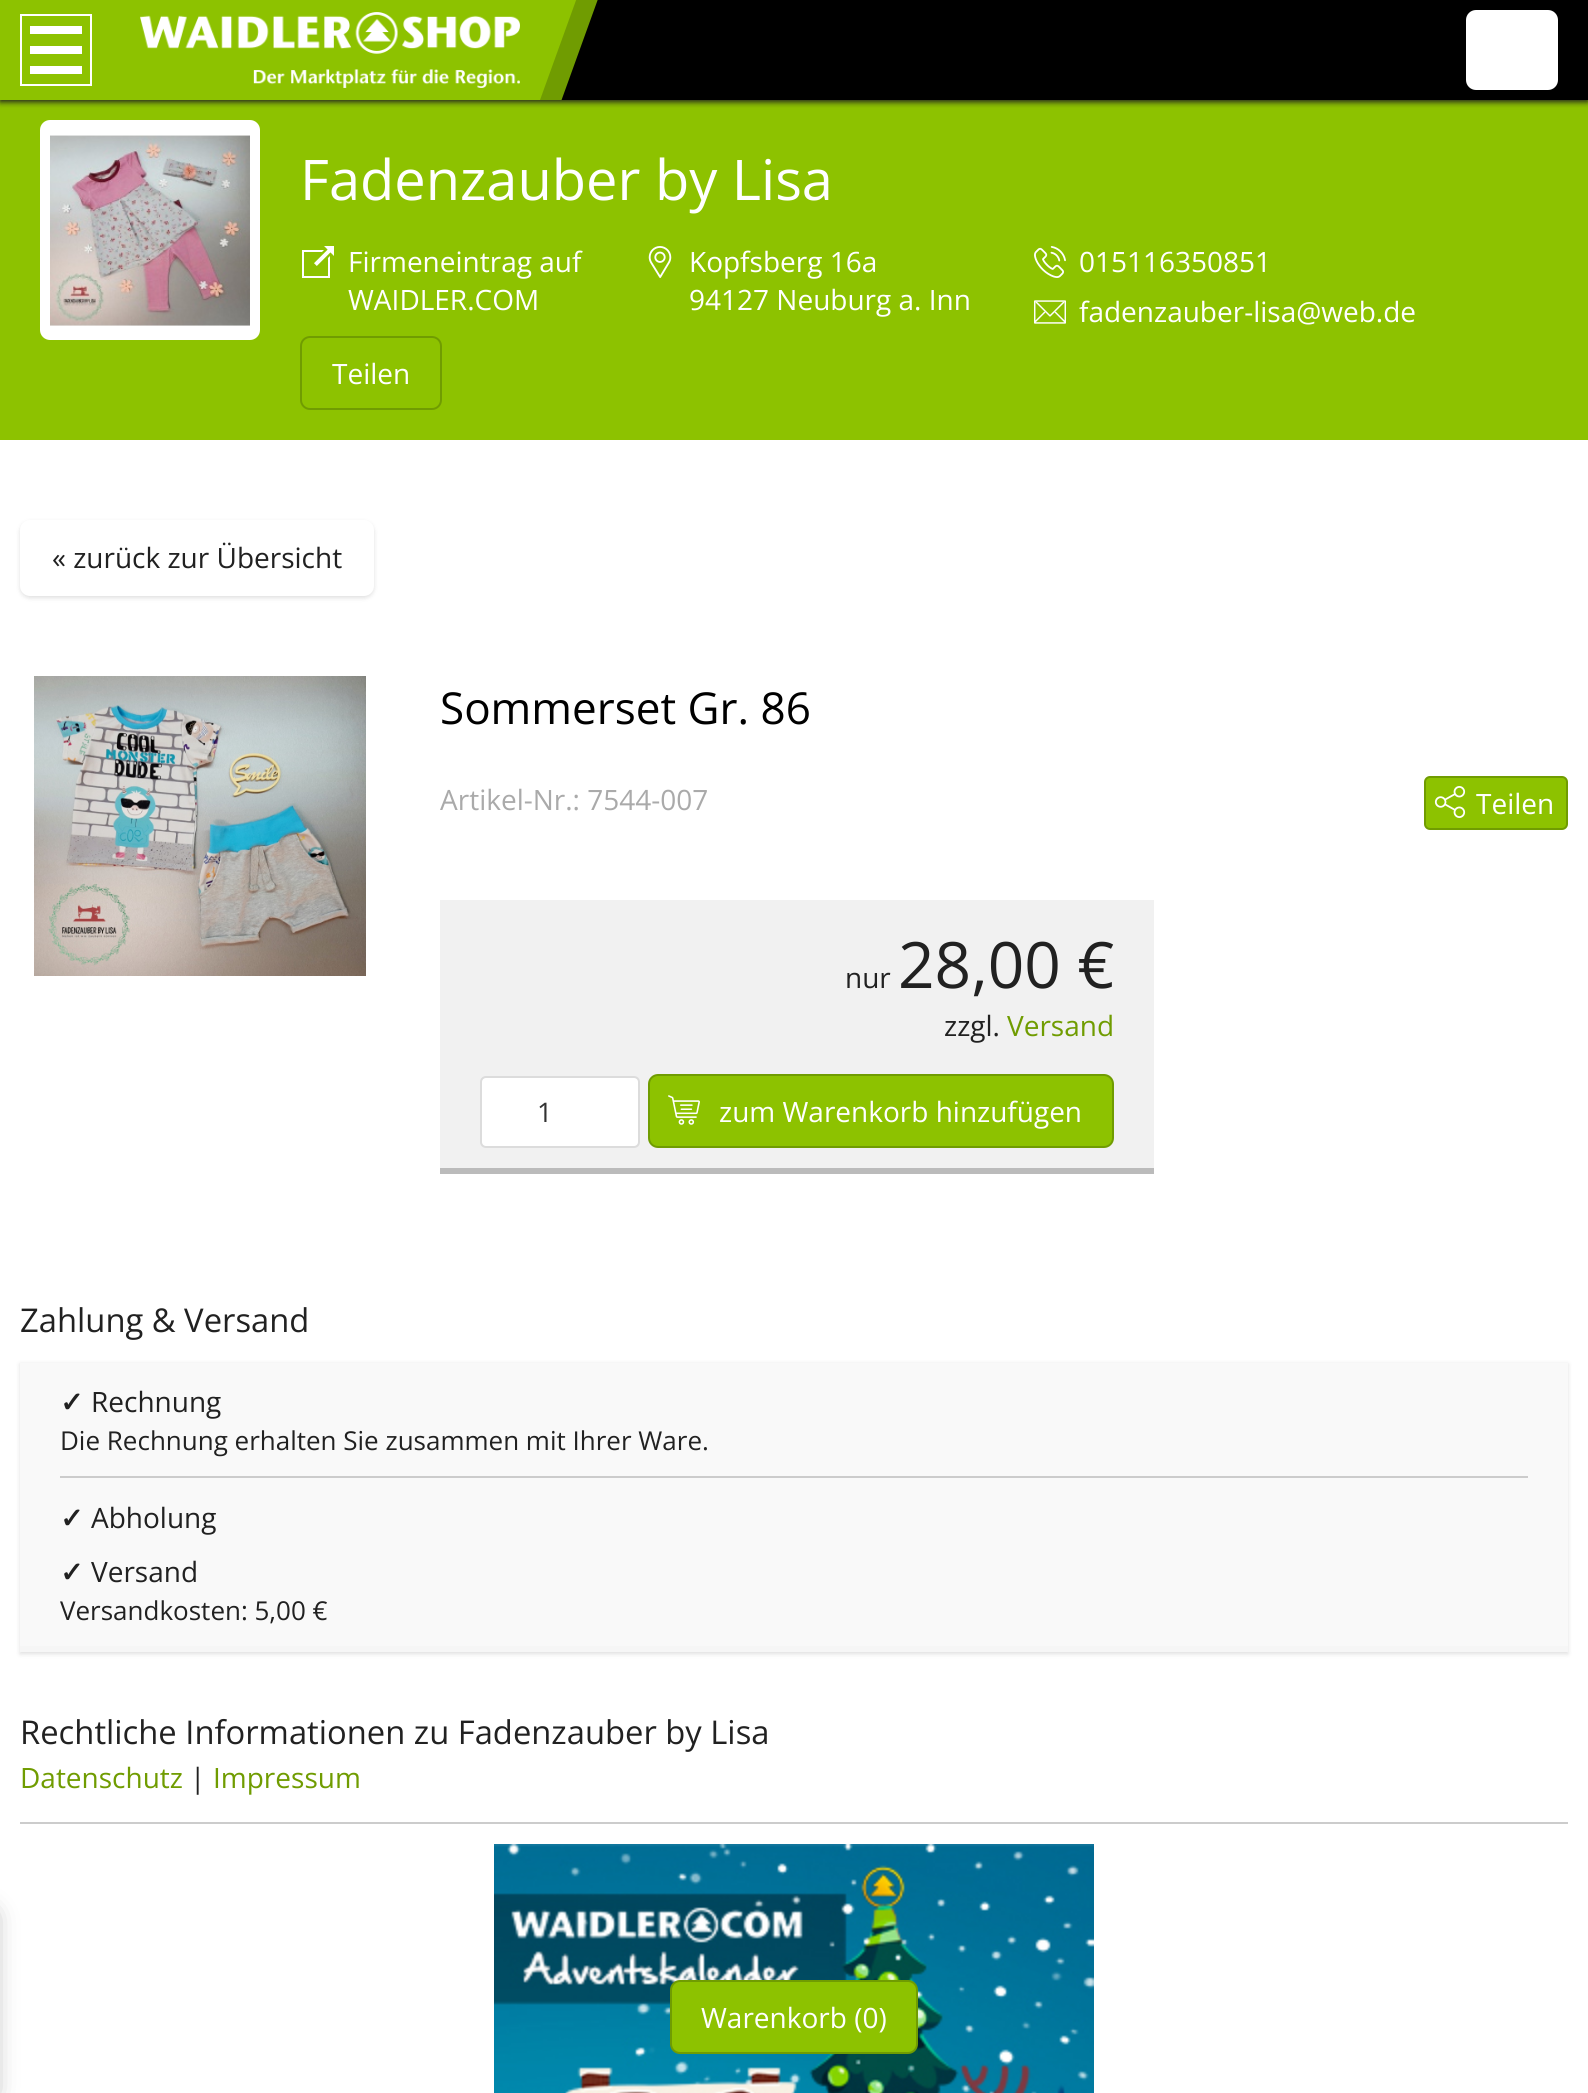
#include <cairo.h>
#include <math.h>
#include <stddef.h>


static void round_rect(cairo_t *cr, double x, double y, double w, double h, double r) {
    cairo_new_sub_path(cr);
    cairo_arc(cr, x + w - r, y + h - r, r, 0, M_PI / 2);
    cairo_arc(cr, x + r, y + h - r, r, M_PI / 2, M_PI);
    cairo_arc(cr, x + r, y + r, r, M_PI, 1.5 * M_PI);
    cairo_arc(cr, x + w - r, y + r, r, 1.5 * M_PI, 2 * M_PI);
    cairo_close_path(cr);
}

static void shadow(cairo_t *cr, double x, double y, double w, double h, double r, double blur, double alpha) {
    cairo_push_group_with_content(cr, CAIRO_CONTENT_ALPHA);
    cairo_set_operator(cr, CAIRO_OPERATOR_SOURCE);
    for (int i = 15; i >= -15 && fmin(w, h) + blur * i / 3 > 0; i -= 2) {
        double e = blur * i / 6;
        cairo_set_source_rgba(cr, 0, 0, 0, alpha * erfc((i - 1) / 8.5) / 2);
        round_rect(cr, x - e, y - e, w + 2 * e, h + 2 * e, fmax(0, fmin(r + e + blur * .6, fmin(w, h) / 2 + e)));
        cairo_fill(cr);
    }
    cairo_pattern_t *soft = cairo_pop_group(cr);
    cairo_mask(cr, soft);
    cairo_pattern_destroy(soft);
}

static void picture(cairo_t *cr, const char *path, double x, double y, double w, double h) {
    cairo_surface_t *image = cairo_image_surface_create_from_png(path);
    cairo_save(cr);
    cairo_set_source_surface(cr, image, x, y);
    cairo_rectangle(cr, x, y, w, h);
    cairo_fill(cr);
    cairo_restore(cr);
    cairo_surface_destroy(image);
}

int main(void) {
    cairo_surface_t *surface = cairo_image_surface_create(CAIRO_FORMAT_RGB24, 1588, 2093);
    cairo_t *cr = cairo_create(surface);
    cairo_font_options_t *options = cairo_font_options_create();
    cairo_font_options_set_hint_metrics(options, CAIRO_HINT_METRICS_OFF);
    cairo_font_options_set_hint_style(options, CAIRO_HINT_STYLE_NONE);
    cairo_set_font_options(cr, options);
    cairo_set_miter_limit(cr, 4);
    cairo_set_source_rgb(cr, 1, 1, 1);
    cairo_paint(cr);
    cairo_set_source_rgb(cr, 0.553, 0.761, 0);
    cairo_rectangle(cr, 0, 100, 1588, 340);
    cairo_fill(cr);
    cairo_set_source_rgb(cr, 0.125, 0.125, 0.125);
    shadow(cr, 0, 2, 1588, 100, 0, 3, 1);
    cairo_set_source_rgb(cr, 0, 0, 0);
    cairo_rectangle(cr, 561, 0, 1027, 100);
    cairo_fill(cr);
    cairo_set_source_rgb(cr, 0.553, 0.761, 0);
    cairo_rectangle(cr, 0, 0, 530, 100);
    cairo_fill(cr);
    picture(cr, "img1.png", 140, 12, 380, 76);
    cairo_save(cr);
    cairo_rectangle(cr, 0, 0, 600, 100);
    cairo_clip(cr);
    cairo_new_path(cr);
    cairo_move_to(cr, 530, 150);
    cairo_line_to(cr, 530, 0);
    cairo_line_to(cr, 580, 0);
    cairo_close_path(cr);
    cairo_fill(cr);
    cairo_set_source_rgb(cr, 0.439, 0.612, 0.004);
    cairo_new_path(cr);
    cairo_move_to(cr, 579, -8);
    cairo_line_to(cr, 598, -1);
    cairo_line_to(cr, 537, 168);
    cairo_line_to(cr, 518, 161);
    cairo_close_path(cr);
    cairo_fill(cr);
    cairo_restore(cr);
    cairo_set_source_rgb(cr, 1, 1, 1);
    round_rect(cr, 1467, 11, 90, 78, 9);
    cairo_fill_preserve(cr);
    cairo_stroke(cr);
    cairo_rectangle(cr, 21, 15, 70, 70);
    cairo_stroke(cr);
    cairo_rectangle(cr, 30, 26, 52, 8);
    cairo_fill(cr);
    cairo_rectangle(cr, 30, 46, 52, 8);
    cairo_fill(cr);
    cairo_rectangle(cr, 30, 66, 52, 8);
    cairo_fill(cr);
    round_rect(cr, 40, 120, 220, 220, 10);
    cairo_fill(cr);
    picture(cr, "img2.png", 50, 135, 200, 191);
    cairo_select_font_face(cr, "Open Sans", CAIRO_FONT_SLANT_NORMAL, CAIRO_FONT_WEIGHT_NORMAL);
    cairo_set_font_size(cr, 56);
    cairo_move_to(cr, 300, 200);
    cairo_show_text(cr, "Fadenzauber by Lisa");
    picture(cr, "img3.png", 302, 246, 32, 32);
    cairo_set_font_size(cr, 28);
    cairo_move_to(cr, 348, 272);
    cairo_show_text(cr, "Firmeneintrag auf");
    cairo_move_to(cr, 348, 310);
    cairo_show_text(cr, "WAIDLER.COM");
    picture(cr, "img4.png", 648, 246, 24, 32);
    cairo_move_to(cr, 689, 272);
    cairo_show_text(cr, "Kopfsberg 16a");
    cairo_move_to(cr, 689, 310);
    cairo_show_text(cr, "94127 Neuburg a. Inn");
    picture(cr, "img5.png", 1034, 246, 32, 32);
    cairo_move_to(cr, 1079, 272);
    cairo_show_text(cr, "015116350851");
    picture(cr, "img6.png", 1034, 300, 32, 24);
    cairo_move_to(cr, 1079, 322);
    cairo_show_text(cr, "fadenzauber-lisa@web.de");
    round_rect(cr, 301, 337, 140, 72, 9);
    cairo_set_source_rgb(cr, 0.439, 0.612, 0.004);
    cairo_stroke(cr);
    cairo_set_source_rgb(cr, 1, 1, 1);
    cairo_move_to(cr, 332, 384);
    cairo_show_text(cr, "Teilen");
    cairo_set_source_rgb(cr, 0, 0, 0);
    shadow(cr, 20, 522, 354, 76, 10, 2, 0.08);
    shadow(cr, 20, 522, 354, 76, 10, 3, 0.05);
    cairo_set_source_rgb(cr, 1, 1, 1);
    round_rect(cr, 21, 521, 352, 74, 9);
    cairo_fill_preserve(cr);
    cairo_stroke(cr);
    cairo_set_source_rgb(cr, 0.129, 0.129, 0.129);
    cairo_move_to(cr, 52, 568);
    cairo_show_text(cr, "« zurück zur Übersicht");
    picture(cr, "img7.png", 34, 676, 332, 300);
    cairo_set_font_size(cr, 44);
    cairo_set_source_rgb(cr, 0, 0, 0);
    cairo_move_to(cr, 440, 724);
    cairo_show_text(cr, "Sommerset Gr. 86");
    cairo_set_font_size(cr, 28);
    cairo_set_source_rgb(cr, 0.667, 0.667, 0.667);
    cairo_move_to(cr, 440, 810);
    cairo_show_text(cr, "Artikel-Nr.: 7544-007");
    cairo_set_source_rgb(cr, 0.553, 0.761, 0);
    round_rect(cr, 1425, 777, 142, 52, 5);
    cairo_fill_preserve(cr);
    cairo_set_source_rgb(cr, 0.439, 0.612, 0.004);
    cairo_stroke(cr);
    picture(cr, "img8.png", 1434, 786, 32, 32);
    cairo_set_source_rgb(cr, 1, 1, 1);
    cairo_move_to(cr, 1476, 814);
    cairo_show_text(cr, "Teilen");
    cairo_set_source_rgb(cr, 0.945, 0.945, 0.945);
    cairo_rectangle(cr, 440, 900, 714, 268);
    cairo_fill(cr);
    cairo_set_source_rgb(cr, 0.733, 0.733, 0.733);
    cairo_rectangle(cr, 440, 1168, 714, 6);
    cairo_fill(cr);
    cairo_set_source_rgb(cr, 0.129, 0.129, 0.129);
    cairo_move_to(cr, 845, 988);
    cairo_show_text(cr, "nur");
    cairo_set_font_size(cr, 64);
    cairo_move_to(cr, 898, 988);
    cairo_show_text(cr, "28,00 €");
    cairo_set_font_size(cr, 28);
    cairo_move_to(cr, 944, 1036);
    cairo_show_text(cr, "zzgl.");
    cairo_set_source_rgb(cr, 0.439, 0.612, 0.004);
    cairo_move_to(cr, 1007, 1036);
    cairo_show_text(cr, "Versand");
    cairo_set_source_rgb(cr, 1, 1, 1);
    round_rect(cr, 481, 1077, 158, 70, 5);
    cairo_fill_preserve(cr);
    cairo_set_source_rgb(cr, 0.863, 0.863, 0.863);
    cairo_stroke(cr);
    cairo_set_font_size(cr, 27);
    cairo_set_source_rgb(cr, 0.196, 0.196, 0.196);
    cairo_move_to(cr, 537, 1122);
    cairo_show_text(cr, "1");
    cairo_set_source_rgb(cr, 0.553, 0.761, 0);
    round_rect(cr, 649, 1075, 464, 72, 9);
    cairo_fill_preserve(cr);
    cairo_set_source_rgb(cr, 0.439, 0.612, 0.004);
    cairo_stroke(cr);
    picture(cr, "img9.png", 668, 1095, 32, 30);
    cairo_set_font_size(cr, 28);
    cairo_set_source_rgb(cr, 1, 1, 1);
    cairo_move_to(cr, 719, 1122);
    cairo_show_text(cr, "zum Warenkorb hinzufügen");
    cairo_set_font_size(cr, 32.75);
    cairo_set_source_rgb(cr, 0.129, 0.129, 0.129);
    cairo_move_to(cr, 20, 1332);
    cairo_show_text(cr, "Zahlung & Versand");
    cairo_set_source_rgb(cr, 0, 0, 0);
    shadow(cr, 20, 1364, 1548, 290, 0, 2, 0.08);
    shadow(cr, 20, 1364, 1548, 290, 0, 3, 0.05);
    cairo_set_source_rgb(cr, 0.976, 0.976, 0.976);
    cairo_rectangle(cr, 20, 1363, 1548, 283);
    cairo_fill(cr);
    cairo_set_source_rgb(cr, 0.961, 0.961, 0.961);
    cairo_rectangle(cr, 20, 1646, 1548, 6);
    cairo_fill(cr);
    cairo_select_font_face(cr, "DejaVu Sans", CAIRO_FONT_SLANT_NORMAL, CAIRO_FONT_WEIGHT_BOLD);
    cairo_set_font_size(cr, 28);
    cairo_set_source_rgb(cr, 0.129, 0.129, 0.129);
    cairo_move_to(cr, 60, 1412);
    cairo_show_text(cr, "✓");
    cairo_select_font_face(cr, "Open Sans", CAIRO_FONT_SLANT_NORMAL, CAIRO_FONT_WEIGHT_NORMAL);
    cairo_move_to(cr, 91, 1412);
    cairo_show_text(cr, "Rechnung");
    cairo_set_font_size(cr, 26);
    cairo_move_to(cr, 60, 1450);
    cairo_show_text(cr, "Die Rechnung erhalten Sie zusammen mit Ihrer Ware.");
    cairo_set_source_rgb(cr, 0.8, 0.8, 0.8);
    cairo_rectangle(cr, 60, 1476, 1468, 2);
    cairo_fill(cr);
    cairo_select_font_face(cr, "DejaVu Sans", CAIRO_FONT_SLANT_NORMAL, CAIRO_FONT_WEIGHT_BOLD);
    cairo_set_font_size(cr, 28);
    cairo_set_source_rgb(cr, 0.129, 0.129, 0.129);
    cairo_move_to(cr, 60, 1528);
    cairo_show_text(cr, "✓");
    cairo_select_font_face(cr, "Open Sans", CAIRO_FONT_SLANT_NORMAL, CAIRO_FONT_WEIGHT_NORMAL);
    cairo_move_to(cr, 91, 1528);
    cairo_show_text(cr, "Abholung");
    cairo_select_font_face(cr, "DejaVu Sans", CAIRO_FONT_SLANT_NORMAL, CAIRO_FONT_WEIGHT_BOLD);
    cairo_move_to(cr, 60, 1582);
    cairo_show_text(cr, "✓");
    cairo_select_font_face(cr, "Open Sans", CAIRO_FONT_SLANT_NORMAL, CAIRO_FONT_WEIGHT_NORMAL);
    cairo_move_to(cr, 91, 1582);
    cairo_show_text(cr, "Versand");
    cairo_set_font_size(cr, 26);
    cairo_move_to(cr, 60, 1620);
    cairo_show_text(cr, "Versandkosten: 5,00 €");
    cairo_set_font_size(cr, 32.75);
    cairo_move_to(cr, 20, 1744);
    cairo_show_text(cr, "Rechtliche Informationen zu Fadenzauber by Lisa");
    cairo_set_font_size(cr, 28);
    cairo_set_source_rgb(cr, 0.439, 0.612, 0.004);
    cairo_move_to(cr, 20, 1788);
    cairo_show_text(cr, "Datenschutz");
    cairo_set_source_rgb(cr, 0.129, 0.129, 0.129);
    cairo_move_to(cr, 190, 1788);
    cairo_show_text(cr, "|");
    cairo_set_source_rgb(cr, 0.439, 0.612, 0.004);
    cairo_move_to(cr, 213, 1788);
    cairo_show_text(cr, "Impressum");
    cairo_set_source_rgb(cr, 0.8, 0.8, 0.8);
    cairo_rectangle(cr, 20, 1822, 1548, 2);
    cairo_fill(cr);
    cairo_set_source_rgb(cr, 0.451, 0.451, 0.451);
    shadow(cr, -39, 1916, 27, 176, 0, 13, 1);
    picture(cr, "img10.png", 494, 1844, 600, 249);
    cairo_set_source_rgb(cr, 0.553, 0.761, 0);
    round_rect(cr, 671, 1981, 246, 72, 9);
    cairo_fill_preserve(cr);
    cairo_set_source_rgb(cr, 0.439, 0.612, 0.004);
    cairo_stroke(cr);
    cairo_set_source_rgb(cr, 1, 1, 1);
    cairo_move_to(cr, 701, 2028);
    cairo_show_text(cr, "Warenkorb (0)");
    cairo_surface_write_to_png(surface, "page.png");
    cairo_font_options_destroy(options);
    cairo_destroy(cr);
    cairo_surface_destroy(surface);
    return 0;
}
